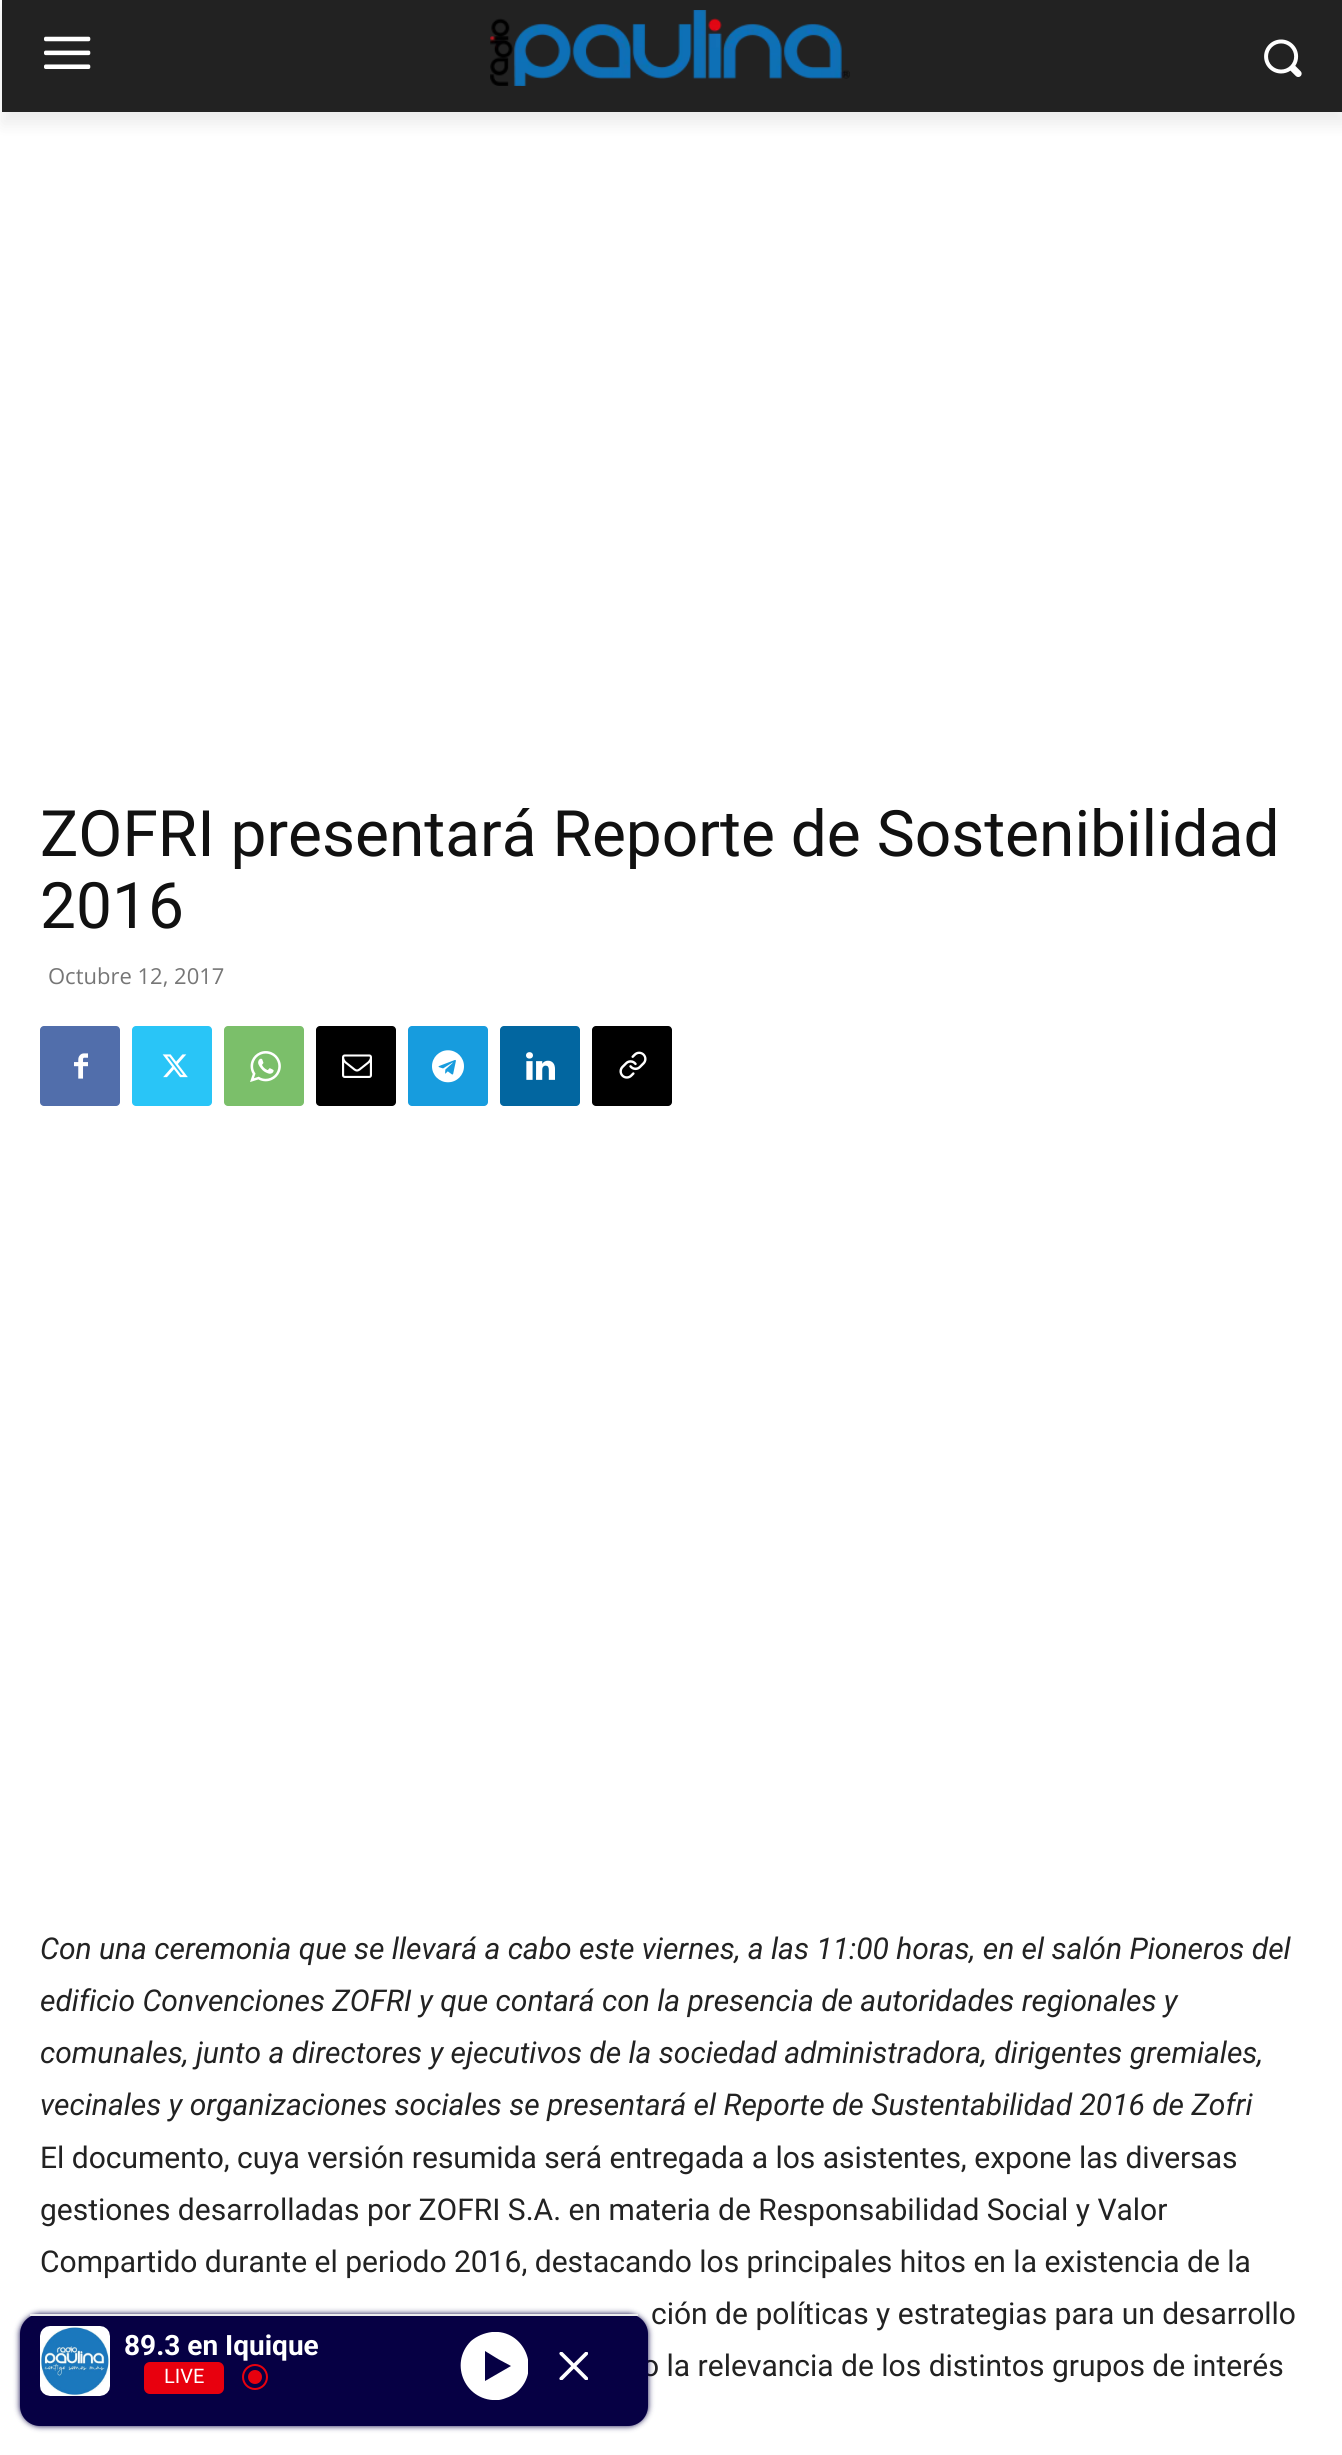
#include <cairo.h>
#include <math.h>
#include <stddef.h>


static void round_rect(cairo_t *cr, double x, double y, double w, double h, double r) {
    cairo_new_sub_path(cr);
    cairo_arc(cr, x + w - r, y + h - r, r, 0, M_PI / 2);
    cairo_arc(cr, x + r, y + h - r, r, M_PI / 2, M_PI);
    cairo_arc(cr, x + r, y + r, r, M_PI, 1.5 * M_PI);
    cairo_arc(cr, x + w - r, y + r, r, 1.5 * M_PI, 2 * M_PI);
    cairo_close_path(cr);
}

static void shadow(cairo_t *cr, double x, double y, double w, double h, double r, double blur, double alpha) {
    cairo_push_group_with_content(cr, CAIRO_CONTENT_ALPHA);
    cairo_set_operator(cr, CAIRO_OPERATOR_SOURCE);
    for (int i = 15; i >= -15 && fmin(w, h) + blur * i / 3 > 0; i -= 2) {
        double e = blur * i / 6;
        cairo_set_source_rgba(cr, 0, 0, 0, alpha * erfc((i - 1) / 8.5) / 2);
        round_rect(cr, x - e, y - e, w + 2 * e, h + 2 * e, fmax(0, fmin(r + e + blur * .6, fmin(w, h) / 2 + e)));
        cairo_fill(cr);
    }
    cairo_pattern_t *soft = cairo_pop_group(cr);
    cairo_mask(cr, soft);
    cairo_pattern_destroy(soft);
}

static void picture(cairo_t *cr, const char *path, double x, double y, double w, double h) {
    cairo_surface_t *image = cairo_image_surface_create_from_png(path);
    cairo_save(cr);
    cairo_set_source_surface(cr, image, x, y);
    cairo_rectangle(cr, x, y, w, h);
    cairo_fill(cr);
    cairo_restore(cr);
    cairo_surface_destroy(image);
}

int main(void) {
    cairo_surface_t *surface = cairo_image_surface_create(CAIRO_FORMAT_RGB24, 1342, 2455);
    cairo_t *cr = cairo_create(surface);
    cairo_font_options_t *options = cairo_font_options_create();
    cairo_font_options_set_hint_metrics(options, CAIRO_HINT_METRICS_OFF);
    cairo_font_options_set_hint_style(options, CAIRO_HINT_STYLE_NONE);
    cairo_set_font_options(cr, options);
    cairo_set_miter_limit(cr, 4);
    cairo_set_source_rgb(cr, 1, 1, 1);
    cairo_paint(cr);
    cairo_set_source_rgb(cr, 0.133, 0.133, 0.133);
    cairo_rectangle(cr, 2, 0, 1340, 112);
    cairo_fill(cr);
    picture(cr, "img1.png", 44, 36, 47, 33);
    picture(cr, "img2.png", 490, 10, 360, 76);
    picture(cr, "img3.png", 1264, 39, 38, 38);
    cairo_save(cr);
    cairo_set_fill_rule(cr, CAIRO_FILL_RULE_EVEN_ODD);
    cairo_new_path(cr);
    cairo_move_to(cr, 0, 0);
    cairo_line_to(cr, 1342, 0);
    cairo_line_to(cr, 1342, 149);
    cairo_line_to(cr, 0, 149);
    cairo_close_path(cr);
    cairo_move_to(cr, 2, 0);
    cairo_line_to(cr, 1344, 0);
    cairo_line_to(cr, 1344, 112);
    cairo_line_to(cr, 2, 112);
    cairo_close_path(cr);
    cairo_clip(cr);
    cairo_set_source_rgb(cr, 0, 0, 0);
    shadow(cr, 2, 12, 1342, 112, 0, 8, 0.08);
    cairo_restore(cr);
    cairo_select_font_face(cr, "Roboto", CAIRO_FONT_SLANT_NORMAL, CAIRO_FONT_WEIGHT_NORMAL);
    cairo_set_font_size(cr, 64);
    cairo_set_source_rgb(cr, 0.067, 0.067, 0.067);
    cairo_move_to(cr, 40, 856);
    cairo_show_text(cr, "ZOFRI presentará Reporte de Sostenibilidad");
    cairo_move_to(cr, 40, 928);
    cairo_show_text(cr, "2016");
    cairo_select_font_face(cr, "Open Sans", CAIRO_FONT_SLANT_NORMAL, CAIRO_FONT_WEIGHT_NORMAL);
    cairo_set_font_size(cr, 22);
    cairo_set_source_rgb(cr, 0.463, 0.463, 0.463);
    cairo_move_to(cr, 48, 984);
    cairo_show_text(cr, "Octubre 12, 2017");
    cairo_set_source_rgb(cr, 0.318, 0.431, 0.671);
    round_rect(cr, 40, 1026, 80, 80, 4);
    cairo_fill(cr);
    picture(cr, "img4.png", 74, 1053, 14, 26);
    cairo_set_source_rgb(cr, 0.161, 0.773, 0.965);
    round_rect(cr, 132, 1026, 80, 80, 4);
    cairo_fill(cr);
    picture(cr, "img5.png", 162, 1054, 26, 24);
    cairo_set_source_rgb(cr, 0.482, 0.749, 0.416);
    round_rect(cr, 224, 1026, 80, 80, 4);
    cairo_fill(cr);
    picture(cr, "img6.png", 250, 1051, 31, 31);
    cairo_set_source_rgb(cr, 0, 0, 0);
    round_rect(cr, 316, 1026, 80, 80, 4);
    cairo_fill(cr);
    picture(cr, "img7.png", 342, 1054, 30, 24);
    cairo_set_source_rgb(cr, 0.09, 0.612, 0.871);
    round_rect(cr, 408, 1026, 80, 80, 4);
    cairo_fill(cr);
    picture(cr, "img8.png", 432, 1050, 32, 33);
    cairo_set_source_rgb(cr, 0.008, 0.4, 0.627);
    round_rect(cr, 500, 1026, 80, 80, 4);
    cairo_fill(cr);
    picture(cr, "img9.png", 526, 1052, 29, 28);
    cairo_set_source_rgb(cr, 0, 0, 0);
    round_rect(cr, 592, 1026, 80, 80, 4);
    cairo_fill(cr);
    picture(cr, "img10.png", 619, 1051, 28, 28);
    cairo_select_font_face(cr, "Roboto", CAIRO_FONT_SLANT_ITALIC, CAIRO_FONT_WEIGHT_NORMAL);
    cairo_set_font_size(cr, 30);
    cairo_set_source_rgb(cr, 0.133, 0.133, 0.133);
    cairo_move_to(cr, 40, 1959);
    cairo_show_text(cr, "Con una ceremonia que se llevará a cabo este viernes, a las 11:00 horas, en el salón Pioneros del");
    cairo_move_to(cr, 40, 2011);
    cairo_show_text(cr, "edificio Convenciones ZOFRI y que contará con la presencia de autoridades regionales y");
    cairo_move_to(cr, 40, 2063);
    cairo_show_text(cr, "comunales, junto a directores y ejecutivos de la sociedad administradora, dirigentes gremiales,");
    cairo_move_to(cr, 40, 2115);
    cairo_show_text(cr, "vecinales y organizaciones sociales se presentará el Reporte de Sustentabilidad 2016 de Zofri");
    cairo_select_font_face(cr, "Roboto", CAIRO_FONT_SLANT_NORMAL, CAIRO_FONT_WEIGHT_NORMAL);
    cairo_move_to(cr, 40, 2168);
    cairo_show_text(cr, "El documento, cuya versión resumida será entregada a los asistentes, expone las diversas");
    cairo_move_to(cr, 40, 2220);
    cairo_show_text(cr, "gestiones desarrolladas por ZOFRI S.A. en materia de Responsabilidad Social y Valor");
    cairo_move_to(cr, 40, 2272);
    cairo_show_text(cr, "Compartido durante el periodo 2016, destacando los principales hitos en la existencia de la");
    cairo_move_to(cr, 651, 2324);
    cairo_show_text(cr, "ción de políticas y estrategias para un desarrollo");
    cairo_move_to(cr, 642, 2376);
    cairo_show_text(cr, "o la relevancia de los distintos grupos de interés");
    cairo_set_source_rgb(cr, 0.027, 0, 0.267);
    shadow(cr, 20, 2314, 628, 112, 20, 3, 1);
    cairo_set_source_rgb(cr, 0.027, 0, 0.267);
    round_rect(cr, 20, 2314, 628, 112, 20);
    cairo_fill(cr);
    cairo_set_source_rgb(cr, 0.929, 0.929, 0.929);
    cairo_rectangle(cr, 30, 2314, 608, 2);
    cairo_fill(cr);
    picture(cr, "img11.png", 40, 2326, 70, 70);
    cairo_select_font_face(cr, "Roboto", CAIRO_FONT_SLANT_NORMAL, CAIRO_FONT_WEIGHT_BOLD);
    cairo_set_font_size(cr, 28);
    cairo_set_source_rgb(cr, 1, 1, 1);
    cairo_move_to(cr, 124, 2355);
    cairo_show_text(cr, "89.3 en Iquique");
    cairo_set_source_rgb(cr, 0.91, 0, 0.055);
    round_rect(cr, 144, 2362, 80, 32, 6);
    cairo_fill(cr);
    cairo_select_font_face(cr, "Roboto", CAIRO_FONT_SLANT_NORMAL, CAIRO_FONT_WEIGHT_NORMAL);
    cairo_set_font_size(cr, 20);
    cairo_set_source_rgb(cr, 1, 1, 1);
    cairo_move_to(cr, 164, 2383);
    cairo_show_text(cr, "LIVE");
    cairo_set_source_rgb(cr, 0.91, 0, 0.055);
    cairo_new_path(cr);
    cairo_arc(cr, 255, 2377, 7, 0, 2 * M_PI);
    cairo_fill(cr);
    cairo_arc(cr, 255, 2377, 12, 0, 2 * M_PI);
    cairo_stroke(cr);
    cairo_save(cr);
    cairo_rectangle(cr, 460, 2332, 68, 68);
    cairo_clip(cr);
    cairo_set_source_rgb(cr, 1, 1, 1);
    cairo_new_path(cr);
    cairo_move_to(cr, 492, 2332);
    cairo_curve_to(cr, 484, 2333, 477, 2336, 471, 2341);
    cairo_curve_to(cr, 448, 2364, 466, 2403, 499, 2400);
    cairo_curve_to(cr, 505, 2399, 512, 2396, 517, 2392);
    cairo_curve_to(cr, 542, 2370, 524, 2329, 492, 2332);
    cairo_close_path(cr);
    cairo_move_to(cr, 498, 2359);
    cairo_line_to(cr, 511, 2366);
    cairo_line_to(cr, 485, 2381);
    cairo_line_to(cr, 485, 2351);
    cairo_close_path(cr);
    cairo_fill(cr);
    cairo_restore(cr);
    picture(cr, "img12.png", 559, 2352, 29, 28);
    cairo_surface_write_to_png(surface, "page.png");
    cairo_font_options_destroy(options);
    cairo_destroy(cr);
    cairo_surface_destroy(surface);
    return 0;
}
